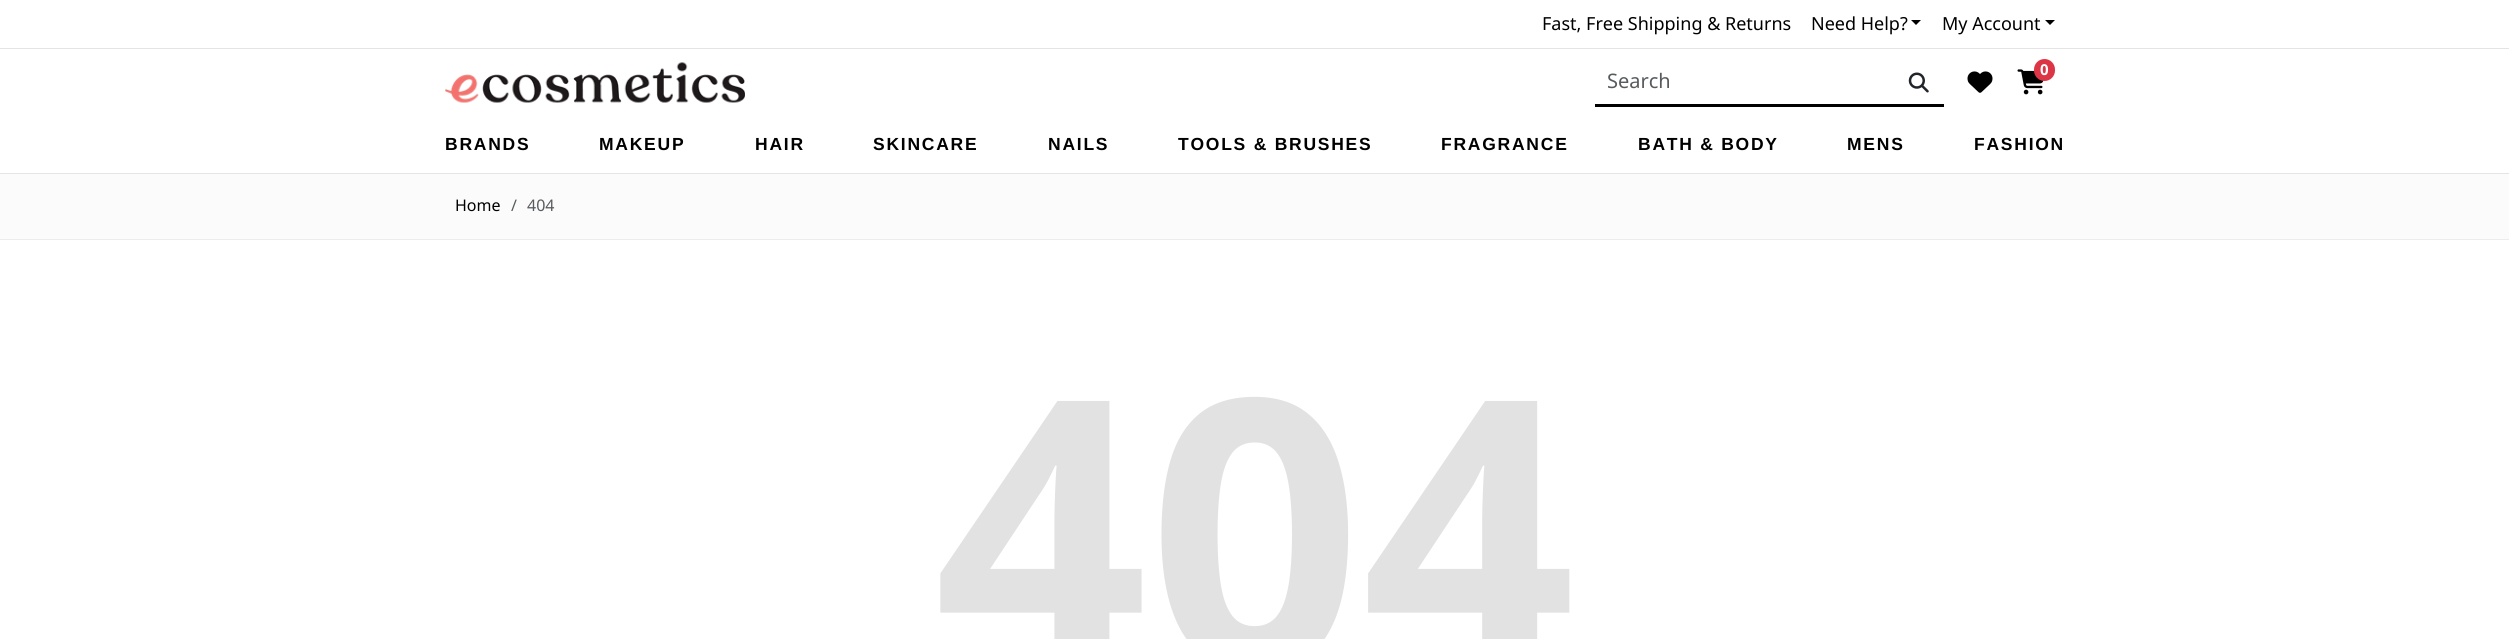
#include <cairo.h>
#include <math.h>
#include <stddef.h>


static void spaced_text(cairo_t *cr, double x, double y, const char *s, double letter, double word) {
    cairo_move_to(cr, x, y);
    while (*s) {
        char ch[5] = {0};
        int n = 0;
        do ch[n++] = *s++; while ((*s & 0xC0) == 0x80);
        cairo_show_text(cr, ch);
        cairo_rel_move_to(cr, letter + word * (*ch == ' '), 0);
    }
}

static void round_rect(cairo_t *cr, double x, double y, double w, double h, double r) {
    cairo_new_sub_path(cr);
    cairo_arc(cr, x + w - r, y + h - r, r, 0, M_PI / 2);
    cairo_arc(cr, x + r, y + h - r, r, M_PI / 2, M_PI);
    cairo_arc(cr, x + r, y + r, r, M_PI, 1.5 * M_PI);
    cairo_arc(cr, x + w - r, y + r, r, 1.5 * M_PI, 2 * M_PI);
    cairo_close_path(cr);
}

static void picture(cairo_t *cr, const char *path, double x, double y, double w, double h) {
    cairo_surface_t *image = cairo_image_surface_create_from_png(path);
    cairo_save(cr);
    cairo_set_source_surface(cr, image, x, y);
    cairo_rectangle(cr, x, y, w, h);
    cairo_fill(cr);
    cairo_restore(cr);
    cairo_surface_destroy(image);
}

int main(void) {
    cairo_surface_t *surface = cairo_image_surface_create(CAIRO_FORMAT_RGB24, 2509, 639);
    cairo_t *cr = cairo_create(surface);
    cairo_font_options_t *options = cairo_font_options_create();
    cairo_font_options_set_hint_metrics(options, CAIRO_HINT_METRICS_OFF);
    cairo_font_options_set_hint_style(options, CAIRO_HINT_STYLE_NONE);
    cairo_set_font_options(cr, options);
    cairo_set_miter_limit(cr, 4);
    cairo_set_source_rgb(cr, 1, 1, 1);
    cairo_paint(cr);
    cairo_set_source_rgb(cr, 0.894, 0.894, 0.894);
    cairo_rectangle(cr, 0, 48, 2509, 1);
    cairo_fill(cr);
    cairo_select_font_face(cr, "Noto Sans", CAIRO_FONT_SLANT_NORMAL, CAIRO_FONT_WEIGHT_NORMAL);
    cairo_set_font_size(cr, 18);
    cairo_set_source_rgb(cr, 0, 0, 0);
    cairo_move_to(cr, 1542, 30);
    cairo_show_text(cr, "Fast, Free Shipping & Returns");
    cairo_move_to(cr, 1811, 30);
    cairo_show_text(cr, "Need Help?");
    cairo_new_path(cr);
    cairo_move_to(cr, 1911, 20);
    cairo_line_to(cr, 1921, 20);
    cairo_line_to(cr, 1916, 25);
    cairo_close_path(cr);
    cairo_fill(cr);
    cairo_move_to(cr, 1942, 30);
    cairo_show_text(cr, "My Account");
    cairo_new_path(cr);
    cairo_move_to(cr, 2045, 20);
    cairo_line_to(cr, 2055, 20);
    cairo_line_to(cr, 2050, 25);
    cairo_close_path(cr);
    cairo_fill(cr);
    picture(cr, "img1.png", 445, 62, 300, 41);
    picture(cr, "img2.png", 1967, 71, 26, 22);
    picture(cr, "img3.png", 2017, 69, 27, 26);
    cairo_set_source_rgb(cr, 0.863, 0.208, 0.271);
    round_rect(cr, 2034, 59, 21, 22, 10.5);
    cairo_fill(cr);
    cairo_select_font_face(cr, "Noto Sans", CAIRO_FONT_SLANT_NORMAL, CAIRO_FONT_WEIGHT_BOLD);
    cairo_set_font_size(cr, 15);
    cairo_set_source_rgb(cr, 1, 1, 1);
    cairo_move_to(cr, 2040, 75);
    cairo_show_text(cr, "0");
    cairo_set_source_rgb(cr, 0, 0, 0);
    cairo_rectangle(cr, 1595, 104, 349, 3);
    cairo_fill(cr);
    cairo_select_font_face(cr, "Noto Sans", CAIRO_FONT_SLANT_NORMAL, CAIRO_FONT_WEIGHT_NORMAL);
    cairo_set_font_size(cr, 20);
    cairo_set_source_rgb(cr, 0.345, 0.357, 0.369);
    cairo_move_to(cr, 1607, 88);
    cairo_show_text(cr, "Search");
    picture(cr, "img4.png", 1908, 72, 21, 21);
    cairo_set_source_rgb(cr, 0.894, 0.894, 0.894);
    cairo_rectangle(cr, 0, 173, 2509, 1);
    cairo_fill(cr);
    cairo_select_font_face(cr, "Liberation Sans", CAIRO_FONT_SLANT_NORMAL, CAIRO_FONT_WEIGHT_BOLD);
    cairo_set_font_size(cr, 17.5);
    cairo_set_source_rgb(cr, 0, 0, 0);
    spaced_text(cr, 445, 150, "BRANDS", 1.75, 0);
    spaced_text(cr, 599, 150, "MAKEUP", 1.75, 0);
    spaced_text(cr, 755, 150, "HAIR", 1.75, 0);
    spaced_text(cr, 873, 150, "SKINCARE", 1.75, 0);
    spaced_text(cr, 1048, 150, "NAILS", 1.75, 0);
    spaced_text(cr, 1178, 150, "TOOLS & BRUSHES", 1.75, 0);
    spaced_text(cr, 1441, 150, "FRAGRANCE", 1.75, 0);
    spaced_text(cr, 1638, 150, "BATH & BODY", 1.75, 0);
    spaced_text(cr, 1847, 150, "MENS", 1.75, 0);
    spaced_text(cr, 1974, 150, "FASHION", 1.75, 0);
    cairo_set_source_rgb(cr, 0.984, 0.984, 0.984);
    cairo_rectangle(cr, 0, 174, 2509, 65);
    cairo_fill(cr);
    cairo_set_source_rgb(cr, 0.922, 0.922, 0.922);
    cairo_rectangle(cr, 0, 239, 2509, 1);
    cairo_fill(cr);
    cairo_select_font_face(cr, "Noto Sans", CAIRO_FONT_SLANT_NORMAL, CAIRO_FONT_WEIGHT_NORMAL);
    cairo_set_font_size(cr, 16);
    cairo_set_source_rgb(cr, 0, 0, 0);
    cairo_move_to(cr, 455, 211);
    cairo_show_text(cr, "Home");
    cairo_set_source_rgb(cr, 0.345, 0.357, 0.369);
    cairo_move_to(cr, 511, 211);
    cairo_show_text(cr, "/");
    cairo_move_to(cr, 527, 211);
    cairo_show_text(cr, "404");
    cairo_select_font_face(cr, "Noto Sans", CAIRO_FONT_SLANT_NORMAL, CAIRO_FONT_WEIGHT_BOLD);
    cairo_set_font_size(cr, 374);
    cairo_set_source_rgb(cr, 0.886, 0.886, 0.886);
    cairo_move_to(cr, 934, 668);
    cairo_show_text(cr, "404");
    cairo_surface_write_to_png(surface, "page.png");
    cairo_font_options_destroy(options);
    cairo_destroy(cr);
    cairo_surface_destroy(surface);
    return 0;
}
